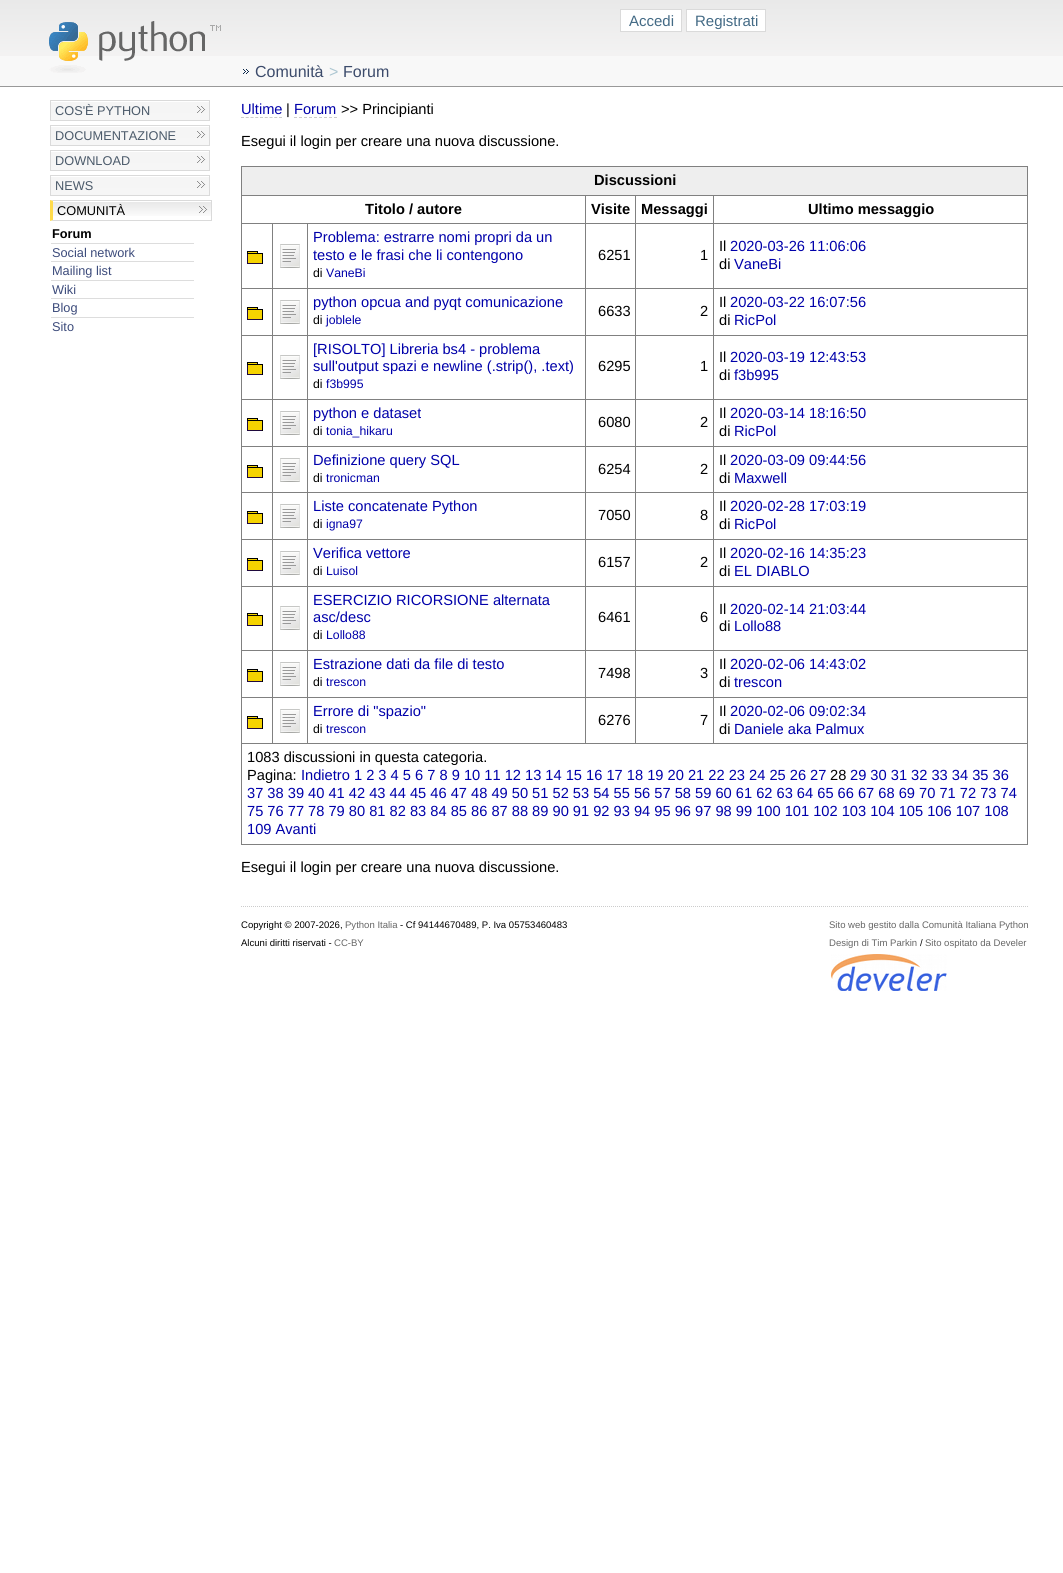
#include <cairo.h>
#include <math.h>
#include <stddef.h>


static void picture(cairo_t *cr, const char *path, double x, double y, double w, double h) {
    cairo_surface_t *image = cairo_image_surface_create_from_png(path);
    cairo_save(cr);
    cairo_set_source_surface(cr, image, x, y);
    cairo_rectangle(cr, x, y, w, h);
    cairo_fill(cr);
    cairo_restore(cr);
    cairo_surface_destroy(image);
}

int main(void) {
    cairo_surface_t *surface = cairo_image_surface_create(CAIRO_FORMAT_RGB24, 1063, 1573);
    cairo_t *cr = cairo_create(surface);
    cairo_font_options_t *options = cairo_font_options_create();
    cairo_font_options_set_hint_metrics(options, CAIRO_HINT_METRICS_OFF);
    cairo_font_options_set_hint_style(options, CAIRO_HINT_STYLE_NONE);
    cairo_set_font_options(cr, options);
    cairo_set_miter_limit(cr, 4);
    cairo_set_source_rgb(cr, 1, 1, 1);
    cairo_paint(cr);
    cairo_set_source_rgb(cr, 0.969, 0.969, 0.969);
    cairo_rectangle(cr, 0, 56, 1063, 30);
    cairo_fill(cr);
    picture(cr, "img1.png", 0, 0, 1063, 56);
    cairo_set_source_rgb(cr, 0.6, 0.6, 0.6);
    cairo_rectangle(cr, 0, 86, 1063, 1);
    cairo_fill(cr);
    picture(cr, "img2.png", 49, 21, 172, 52);
    cairo_set_source_rgb(cr, 1, 1, 1);
    cairo_rectangle(cr, 620.5, 9.5, 61, 22);
    cairo_fill_preserve(cr);
    cairo_set_source_rgb(cr, 0.855, 0.855, 0.855);
    cairo_set_line_width(cr, 1);
    cairo_stroke(cr);
    cairo_select_font_face(cr, "Liberation Sans", CAIRO_FONT_SLANT_NORMAL, CAIRO_FONT_WEIGHT_NORMAL);
    cairo_set_font_size(cr, 15);
    cairo_set_source_rgb(cr, 0.263, 0.416, 0.522);
    cairo_move_to(cr, 629, 26);
    cairo_show_text(cr, "Accedi");
    cairo_set_source_rgb(cr, 1, 1, 1);
    cairo_rectangle(cr, 686.5, 9.5, 79, 22);
    cairo_fill_preserve(cr);
    cairo_set_source_rgb(cr, 0.855, 0.855, 0.855);
    cairo_stroke(cr);
    cairo_set_source_rgb(cr, 0.263, 0.416, 0.522);
    cairo_move_to(cr, 695, 26);
    cairo_show_text(cr, "Registrati");
    cairo_set_source_rgb(cr, 0.961, 0.961, 0.961);
    cairo_rectangle(cr, 51, 113, 158, 7);
    cairo_fill(cr);
    picture(cr, "img3.png", 51, 101, 158, 12);
    cairo_rectangle(cr, 50.5, 100.5, 159, 20);
    cairo_set_source_rgb(cr, 0.855, 0.855, 0.855);
    cairo_stroke(cr);
    cairo_set_font_size(cr, 12.75);
    cairo_set_source_rgb(cr, 0.294, 0.353, 0.416);
    cairo_move_to(cr, 55, 115);
    cairo_show_text(cr, "COS'È PYTHON");
    cairo_set_source_rgb(cr, 0.961, 0.961, 0.961);
    cairo_rectangle(cr, 51, 138, 158, 7);
    cairo_fill(cr);
    picture(cr, "img3.png", 51, 126, 158, 12);
    cairo_rectangle(cr, 50.5, 125.5, 159, 20);
    cairo_set_source_rgb(cr, 0.855, 0.855, 0.855);
    cairo_stroke(cr);
    cairo_set_source_rgb(cr, 0.294, 0.353, 0.416);
    cairo_move_to(cr, 55, 140);
    cairo_show_text(cr, "DOCUMENTAZIONE");
    cairo_set_source_rgb(cr, 0.961, 0.961, 0.961);
    cairo_rectangle(cr, 51, 163, 158, 7);
    cairo_fill(cr);
    picture(cr, "img3.png", 51, 151, 158, 12);
    cairo_rectangle(cr, 50.5, 150.5, 159, 20);
    cairo_set_source_rgb(cr, 0.855, 0.855, 0.855);
    cairo_stroke(cr);
    cairo_set_source_rgb(cr, 0.294, 0.353, 0.416);
    cairo_move_to(cr, 55, 165);
    cairo_show_text(cr, "DOWNLOAD");
    cairo_set_source_rgb(cr, 0.961, 0.961, 0.961);
    cairo_rectangle(cr, 51, 188, 158, 7);
    cairo_fill(cr);
    picture(cr, "img3.png", 51, 176, 158, 12);
    cairo_rectangle(cr, 50.5, 175.5, 159, 20);
    cairo_set_source_rgb(cr, 0.855, 0.855, 0.855);
    cairo_stroke(cr);
    cairo_set_source_rgb(cr, 0.294, 0.353, 0.416);
    cairo_move_to(cr, 55, 190);
    cairo_show_text(cr, "NEWS");
    picture(cr, "img4.png", 53, 202, 158, 14);
    cairo_set_source_rgb(cr, 0.855, 0.855, 0.855);
    cairo_new_path(cr);
    cairo_move_to(cr, 50, 200);
    cairo_line_to(cr, 212, 200);
    cairo_line_to(cr, 211, 201);
    cairo_line_to(cr, 53, 201);
    cairo_close_path(cr);
    cairo_fill(cr);
    cairo_rectangle(cr, 211, 200, 1, 21);
    cairo_fill(cr);
    cairo_new_path(cr);
    cairo_move_to(cr, 212, 221);
    cairo_line_to(cr, 50, 221);
    cairo_line_to(cr, 53, 220);
    cairo_line_to(cr, 211, 220);
    cairo_close_path(cr);
    cairo_fill(cr);
    cairo_set_source_rgb(cr, 1, 0.859, 0.298);
    cairo_new_path(cr);
    cairo_move_to(cr, 50, 221);
    cairo_line_to(cr, 50, 200);
    cairo_line_to(cr, 53, 201);
    cairo_line_to(cr, 53, 220);
    cairo_close_path(cr);
    cairo_fill(cr);
    cairo_set_source_rgb(cr, 0, 0, 0);
    cairo_move_to(cr, 57, 215);
    cairo_show_text(cr, "COMUNITÀ");
    cairo_select_font_face(cr, "Liberation Sans", CAIRO_FONT_SLANT_NORMAL, CAIRO_FONT_WEIGHT_BOLD);
    cairo_move_to(cr, 52, 238);
    cairo_show_text(cr, "Forum");
    cairo_set_source_rgb(cr, 0.867, 0.867, 0.867);
    cairo_rectangle(cr, 51, 243, 143, 1);
    cairo_fill(cr);
    cairo_select_font_face(cr, "Liberation Sans", CAIRO_FONT_SLANT_NORMAL, CAIRO_FONT_WEIGHT_NORMAL);
    cairo_set_source_rgb(cr, 0.235, 0.294, 0.482);
    cairo_move_to(cr, 52, 257);
    cairo_show_text(cr, "Social network");
    cairo_set_source_rgb(cr, 0.867, 0.867, 0.867);
    cairo_rectangle(cr, 51, 261, 143, 1);
    cairo_fill(cr);
    cairo_set_source_rgb(cr, 0.235, 0.294, 0.482);
    cairo_move_to(cr, 52, 275);
    cairo_show_text(cr, "Mailing list");
    cairo_set_source_rgb(cr, 0.867, 0.867, 0.867);
    cairo_rectangle(cr, 51, 280, 143, 1);
    cairo_fill(cr);
    cairo_set_source_rgb(cr, 0.235, 0.294, 0.482);
    cairo_move_to(cr, 52, 294);
    cairo_show_text(cr, "Wiki");
    cairo_set_source_rgb(cr, 0.867, 0.867, 0.867);
    cairo_rectangle(cr, 51, 298, 143, 1);
    cairo_fill(cr);
    cairo_set_source_rgb(cr, 0.235, 0.294, 0.482);
    cairo_move_to(cr, 52, 312);
    cairo_show_text(cr, "Blog");
    cairo_set_source_rgb(cr, 0.867, 0.867, 0.867);
    cairo_rectangle(cr, 51, 317, 143, 1);
    cairo_fill(cr);
    cairo_set_source_rgb(cr, 0.235, 0.294, 0.482);
    cairo_move_to(cr, 52, 331);
    cairo_show_text(cr, "Sito");
    picture(cr, "img5.png", 243, 69, 6, 5);
    cairo_set_font_size(cr, 16);
    cairo_set_source_rgb(cr, 0.235, 0.294, 0.42);
    cairo_move_to(cr, 255, 77);
    cairo_show_text(cr, "Comunità");
    cairo_set_source_rgb(cr, 0.675, 0.776, 0.82);
    cairo_move_to(cr, 329, 77);
    cairo_show_text(cr, ">");
    cairo_set_source_rgb(cr, 0.235, 0.294, 0.42);
    cairo_move_to(cr, 343, 77);
    cairo_show_text(cr, "Forum");
    cairo_set_font_size(cr, 14.65);
    cairo_set_source_rgb(cr, 0, 0, 0.667);
    cairo_move_to(cr, 241, 114);
    cairo_show_text(cr, "Ultime");
    cairo_new_path(cr);
    cairo_move_to(cr, 241, 117.5);
    cairo_line_to(cr, 282, 117.5);
    cairo_set_source_rgb(cr, 0.8, 0.8, 0.8);
    cairo_set_dash(cr, (double[]){3, 1.75}, 2, 0);
    cairo_stroke(cr);
    cairo_set_source_rgb(cr, 0, 0, 0);
    cairo_move_to(cr, 286, 114);
    cairo_show_text(cr, "|");
    cairo_set_source_rgb(cr, 0, 0, 0.667);
    cairo_move_to(cr, 294, 114);
    cairo_show_text(cr, "Forum");
    cairo_new_path(cr);
    cairo_move_to(cr, 294, 117.5);
    cairo_line_to(cr, 337, 117.5);
    cairo_set_source_rgb(cr, 0.8, 0.8, 0.8);
    cairo_set_dash(cr, (double[]){3, 2}, 2, 0);
    cairo_stroke(cr);
    cairo_set_source_rgb(cr, 0, 0, 0);
    cairo_move_to(cr, 341, 114);
    cairo_show_text(cr, ">> Principianti");
    cairo_move_to(cr, 241, 146);
    cairo_show_text(cr, "Esegui il login per creare una nuova discussione.");
    cairo_set_source_rgb(cr, 0.933, 0.933, 0.933);
    cairo_rectangle(cr, 242, 167, 785, 28);
    cairo_fill(cr);
    cairo_set_source_rgb(cr, 0.502, 0.502, 0.502);
    cairo_rectangle(cr, 241, 166, 787, 1);
    cairo_fill(cr);
    cairo_rectangle(cr, 713, 195, 315, 1);
    cairo_fill(cr);
    cairo_rectangle(cr, 713, 223, 315, 1);
    cairo_fill(cr);
    cairo_rectangle(cr, 713, 288, 315, 1);
    cairo_fill(cr);
    cairo_rectangle(cr, 713, 335, 315, 1);
    cairo_fill(cr);
    cairo_rectangle(cr, 713, 399, 315, 1);
    cairo_fill(cr);
    cairo_rectangle(cr, 713, 446, 315, 1);
    cairo_fill(cr);
    cairo_rectangle(cr, 713, 492, 315, 1);
    cairo_fill(cr);
    cairo_rectangle(cr, 713, 539, 315, 1);
    cairo_fill(cr);
    cairo_rectangle(cr, 713, 586, 315, 1);
    cairo_fill(cr);
    cairo_rectangle(cr, 713, 650, 315, 1);
    cairo_fill(cr);
    cairo_rectangle(cr, 713, 697, 315, 1);
    cairo_fill(cr);
    cairo_rectangle(cr, 241, 743, 787, 1);
    cairo_fill(cr);
    cairo_rectangle(cr, 1027, 743, 1, 102);
    cairo_fill(cr);
    cairo_rectangle(cr, 1027, 697, 1, 47);
    cairo_fill(cr);
    cairo_rectangle(cr, 1027, 650, 1, 48);
    cairo_fill(cr);
    cairo_rectangle(cr, 1027, 586, 1, 65);
    cairo_fill(cr);
    cairo_rectangle(cr, 1027, 539, 1, 48);
    cairo_fill(cr);
    cairo_rectangle(cr, 1027, 492, 1, 48);
    cairo_fill(cr);
    cairo_rectangle(cr, 1027, 446, 1, 47);
    cairo_fill(cr);
    cairo_rectangle(cr, 1027, 399, 1, 48);
    cairo_fill(cr);
    cairo_rectangle(cr, 1027, 335, 1, 65);
    cairo_fill(cr);
    cairo_rectangle(cr, 1027, 288, 1, 48);
    cairo_fill(cr);
    cairo_rectangle(cr, 1027, 223, 1, 66);
    cairo_fill(cr);
    cairo_rectangle(cr, 1027, 195, 1, 29);
    cairo_fill(cr);
    cairo_rectangle(cr, 1027, 166, 1, 30);
    cairo_fill(cr);
    cairo_rectangle(cr, 713, 697, 1, 47);
    cairo_fill(cr);
    cairo_rectangle(cr, 635, 697, 79, 1);
    cairo_fill(cr);
    cairo_rectangle(cr, 713, 650, 1, 48);
    cairo_fill(cr);
    cairo_rectangle(cr, 635, 650, 79, 1);
    cairo_fill(cr);
    cairo_rectangle(cr, 713, 586, 1, 65);
    cairo_fill(cr);
    cairo_rectangle(cr, 635, 586, 79, 1);
    cairo_fill(cr);
    cairo_rectangle(cr, 713, 539, 1, 48);
    cairo_fill(cr);
    cairo_rectangle(cr, 635, 539, 79, 1);
    cairo_fill(cr);
    cairo_rectangle(cr, 713, 492, 1, 48);
    cairo_fill(cr);
    cairo_rectangle(cr, 635, 492, 79, 1);
    cairo_fill(cr);
    cairo_rectangle(cr, 713, 446, 1, 47);
    cairo_fill(cr);
    cairo_rectangle(cr, 635, 446, 79, 1);
    cairo_fill(cr);
    cairo_rectangle(cr, 713, 399, 1, 48);
    cairo_fill(cr);
    cairo_rectangle(cr, 635, 399, 79, 1);
    cairo_fill(cr);
    cairo_rectangle(cr, 713, 335, 1, 65);
    cairo_fill(cr);
    cairo_rectangle(cr, 635, 335, 79, 1);
    cairo_fill(cr);
    cairo_rectangle(cr, 713, 288, 1, 48);
    cairo_fill(cr);
    cairo_rectangle(cr, 635, 288, 79, 1);
    cairo_fill(cr);
    cairo_rectangle(cr, 713, 223, 1, 66);
    cairo_fill(cr);
    cairo_rectangle(cr, 635, 223, 79, 1);
    cairo_fill(cr);
    cairo_rectangle(cr, 713, 195, 1, 29);
    cairo_fill(cr);
    cairo_rectangle(cr, 635, 195, 79, 1);
    cairo_fill(cr);
    cairo_rectangle(cr, 635, 697, 1, 47);
    cairo_fill(cr);
    cairo_rectangle(cr, 585, 697, 51, 1);
    cairo_fill(cr);
    cairo_rectangle(cr, 635, 650, 1, 48);
    cairo_fill(cr);
    cairo_rectangle(cr, 585, 650, 51, 1);
    cairo_fill(cr);
    cairo_rectangle(cr, 635, 586, 1, 65);
    cairo_fill(cr);
    cairo_rectangle(cr, 585, 586, 51, 1);
    cairo_fill(cr);
    cairo_rectangle(cr, 635, 539, 1, 48);
    cairo_fill(cr);
    cairo_rectangle(cr, 585, 539, 51, 1);
    cairo_fill(cr);
    cairo_rectangle(cr, 635, 492, 1, 48);
    cairo_fill(cr);
    cairo_rectangle(cr, 585, 492, 51, 1);
    cairo_fill(cr);
    cairo_rectangle(cr, 635, 446, 1, 47);
    cairo_fill(cr);
    cairo_rectangle(cr, 585, 446, 51, 1);
    cairo_fill(cr);
    cairo_rectangle(cr, 635, 399, 1, 48);
    cairo_fill(cr);
    cairo_rectangle(cr, 585, 399, 51, 1);
    cairo_fill(cr);
    cairo_rectangle(cr, 635, 335, 1, 65);
    cairo_fill(cr);
    cairo_rectangle(cr, 585, 335, 51, 1);
    cairo_fill(cr);
    cairo_rectangle(cr, 635, 288, 1, 48);
    cairo_fill(cr);
    cairo_rectangle(cr, 585, 288, 51, 1);
    cairo_fill(cr);
    cairo_rectangle(cr, 635, 223, 1, 66);
    cairo_fill(cr);
    cairo_rectangle(cr, 585, 223, 51, 1);
    cairo_fill(cr);
    cairo_rectangle(cr, 635, 195, 1, 29);
    cairo_fill(cr);
    cairo_rectangle(cr, 585, 195, 51, 1);
    cairo_fill(cr);
    cairo_rectangle(cr, 585, 697, 1, 47);
    cairo_fill(cr);
    cairo_rectangle(cr, 307, 697, 279, 1);
    cairo_fill(cr);
    cairo_rectangle(cr, 585, 650, 1, 48);
    cairo_fill(cr);
    cairo_rectangle(cr, 307, 650, 279, 1);
    cairo_fill(cr);
    cairo_rectangle(cr, 585, 586, 1, 65);
    cairo_fill(cr);
    cairo_rectangle(cr, 307, 586, 279, 1);
    cairo_fill(cr);
    cairo_rectangle(cr, 585, 539, 1, 48);
    cairo_fill(cr);
    cairo_rectangle(cr, 307, 539, 279, 1);
    cairo_fill(cr);
    cairo_rectangle(cr, 585, 492, 1, 48);
    cairo_fill(cr);
    cairo_rectangle(cr, 307, 492, 279, 1);
    cairo_fill(cr);
    cairo_rectangle(cr, 585, 446, 1, 47);
    cairo_fill(cr);
    cairo_rectangle(cr, 307, 446, 279, 1);
    cairo_fill(cr);
    cairo_rectangle(cr, 585, 399, 1, 48);
    cairo_fill(cr);
    cairo_rectangle(cr, 307, 399, 279, 1);
    cairo_fill(cr);
    cairo_rectangle(cr, 585, 335, 1, 65);
    cairo_fill(cr);
    cairo_rectangle(cr, 307, 335, 279, 1);
    cairo_fill(cr);
    cairo_rectangle(cr, 585, 288, 1, 48);
    cairo_fill(cr);
    cairo_rectangle(cr, 307, 288, 279, 1);
    cairo_fill(cr);
    cairo_rectangle(cr, 585, 223, 1, 66);
    cairo_fill(cr);
    cairo_rectangle(cr, 307, 223, 279, 1);
    cairo_fill(cr);
    cairo_rectangle(cr, 585, 195, 1, 29);
    cairo_fill(cr);
    cairo_rectangle(cr, 241, 195, 345, 1);
    cairo_fill(cr);
    cairo_rectangle(cr, 307, 697, 1, 47);
    cairo_fill(cr);
    cairo_rectangle(cr, 272, 697, 36, 1);
    cairo_fill(cr);
    cairo_rectangle(cr, 307, 650, 1, 48);
    cairo_fill(cr);
    cairo_rectangle(cr, 272, 650, 36, 1);
    cairo_fill(cr);
    cairo_rectangle(cr, 307, 586, 1, 65);
    cairo_fill(cr);
    cairo_rectangle(cr, 272, 586, 36, 1);
    cairo_fill(cr);
    cairo_rectangle(cr, 307, 539, 1, 48);
    cairo_fill(cr);
    cairo_rectangle(cr, 272, 539, 36, 1);
    cairo_fill(cr);
    cairo_rectangle(cr, 307, 492, 1, 48);
    cairo_fill(cr);
    cairo_rectangle(cr, 272, 492, 36, 1);
    cairo_fill(cr);
    cairo_rectangle(cr, 307, 446, 1, 47);
    cairo_fill(cr);
    cairo_rectangle(cr, 272, 446, 36, 1);
    cairo_fill(cr);
    cairo_rectangle(cr, 307, 399, 1, 48);
    cairo_fill(cr);
    cairo_rectangle(cr, 272, 399, 36, 1);
    cairo_fill(cr);
    cairo_rectangle(cr, 307, 335, 1, 65);
    cairo_fill(cr);
    cairo_rectangle(cr, 272, 335, 36, 1);
    cairo_fill(cr);
    cairo_rectangle(cr, 307, 288, 1, 48);
    cairo_fill(cr);
    cairo_rectangle(cr, 272, 288, 36, 1);
    cairo_fill(cr);
    cairo_rectangle(cr, 307, 223, 1, 66);
    cairo_fill(cr);
    cairo_rectangle(cr, 272, 223, 36, 1);
    cairo_fill(cr);
    cairo_rectangle(cr, 272, 697, 1, 47);
    cairo_fill(cr);
    cairo_rectangle(cr, 241, 697, 32, 1);
    cairo_fill(cr);
    cairo_rectangle(cr, 272, 650, 1, 48);
    cairo_fill(cr);
    cairo_rectangle(cr, 241, 650, 32, 1);
    cairo_fill(cr);
    cairo_rectangle(cr, 272, 586, 1, 65);
    cairo_fill(cr);
    cairo_rectangle(cr, 241, 586, 32, 1);
    cairo_fill(cr);
    cairo_rectangle(cr, 272, 539, 1, 48);
    cairo_fill(cr);
    cairo_rectangle(cr, 241, 539, 32, 1);
    cairo_fill(cr);
    cairo_rectangle(cr, 272, 492, 1, 48);
    cairo_fill(cr);
    cairo_rectangle(cr, 241, 492, 32, 1);
    cairo_fill(cr);
    cairo_rectangle(cr, 272, 446, 1, 47);
    cairo_fill(cr);
    cairo_rectangle(cr, 241, 446, 32, 1);
    cairo_fill(cr);
    cairo_rectangle(cr, 272, 399, 1, 48);
    cairo_fill(cr);
    cairo_rectangle(cr, 241, 399, 32, 1);
    cairo_fill(cr);
    cairo_rectangle(cr, 272, 335, 1, 65);
    cairo_fill(cr);
    cairo_rectangle(cr, 241, 335, 32, 1);
    cairo_fill(cr);
    cairo_rectangle(cr, 272, 288, 1, 48);
    cairo_fill(cr);
    cairo_rectangle(cr, 241, 288, 32, 1);
    cairo_fill(cr);
    cairo_rectangle(cr, 272, 223, 1, 66);
    cairo_fill(cr);
    cairo_rectangle(cr, 241, 223, 32, 1);
    cairo_fill(cr);
    cairo_rectangle(cr, 241, 844, 787, 1);
    cairo_fill(cr);
    cairo_rectangle(cr, 241, 743, 1, 102);
    cairo_fill(cr);
    cairo_rectangle(cr, 241, 697, 1, 47);
    cairo_fill(cr);
    cairo_rectangle(cr, 241, 650, 1, 48);
    cairo_fill(cr);
    cairo_rectangle(cr, 241, 586, 1, 65);
    cairo_fill(cr);
    cairo_rectangle(cr, 241, 539, 1, 48);
    cairo_fill(cr);
    cairo_rectangle(cr, 241, 492, 1, 48);
    cairo_fill(cr);
    cairo_rectangle(cr, 241, 446, 1, 47);
    cairo_fill(cr);
    cairo_rectangle(cr, 241, 399, 1, 48);
    cairo_fill(cr);
    cairo_rectangle(cr, 241, 335, 1, 65);
    cairo_fill(cr);
    cairo_rectangle(cr, 241, 288, 1, 48);
    cairo_fill(cr);
    cairo_rectangle(cr, 241, 223, 1, 66);
    cairo_fill(cr);
    cairo_rectangle(cr, 241, 195, 1, 29);
    cairo_fill(cr);
    cairo_rectangle(cr, 241, 166, 1, 30);
    cairo_fill(cr);
    cairo_select_font_face(cr, "Liberation Sans", CAIRO_FONT_SLANT_NORMAL, CAIRO_FONT_WEIGHT_BOLD);
    cairo_set_source_rgb(cr, 0, 0, 0);
    cairo_move_to(cr, 594, 185);
    cairo_show_text(cr, "Discussioni");
    cairo_move_to(cr, 365, 214);
    cairo_show_text(cr, "Titolo / autore");
    cairo_move_to(cr, 591, 214);
    cairo_show_text(cr, "Visite");
    cairo_move_to(cr, 641, 214);
    cairo_show_text(cr, "Messaggi");
    cairo_move_to(cr, 808, 214);
    cairo_show_text(cr, "Ultimo messaggio");
    picture(cr, "img6.png", 247, 251, 16, 13);
    picture(cr, "img7.png", 280, 244, 20, 24);
    cairo_select_font_face(cr, "Liberation Sans", CAIRO_FONT_SLANT_NORMAL, CAIRO_FONT_WEIGHT_NORMAL);
    cairo_set_source_rgb(cr, 0, 0, 0.667);
    cairo_move_to(cr, 313, 242);
    cairo_show_text(cr, "Problema: estrarre nomi propri da un");
    cairo_move_to(cr, 313, 260);
    cairo_show_text(cr, "testo e le frasi che li contengono");
    cairo_set_font_size(cr, 12.25);
    cairo_set_source_rgb(cr, 0, 0, 0);
    cairo_move_to(cr, 313, 277);
    cairo_show_text(cr, "di");
    cairo_set_source_rgb(cr, 0, 0, 0.667);
    cairo_move_to(cr, 326, 277);
    cairo_show_text(cr, "VaneBi");
    cairo_set_font_size(cr, 14.65);
    cairo_set_source_rgb(cr, 0, 0, 0);
    cairo_move_to(cr, 598, 260);
    cairo_show_text(cr, "6251");
    cairo_move_to(cr, 700, 260);
    cairo_show_text(cr, "1");
    cairo_move_to(cr, 719, 251);
    cairo_show_text(cr, "Il");
    cairo_set_source_rgb(cr, 0, 0, 0.667);
    cairo_move_to(cr, 730, 251);
    cairo_show_text(cr, "2020-03-26 11:06:06");
    cairo_set_source_rgb(cr, 0, 0, 0);
    cairo_move_to(cr, 719, 269);
    cairo_show_text(cr, "di");
    cairo_set_source_rgb(cr, 0, 0, 0.667);
    cairo_move_to(cr, 734, 269);
    cairo_show_text(cr, "VaneBi");
    picture(cr, "img6.png", 247, 307, 16, 13);
    picture(cr, "img7.png", 280, 300, 20, 24);
    cairo_move_to(cr, 313, 307);
    cairo_show_text(cr, "python opcua and pyqt comunicazione");
    cairo_set_font_size(cr, 12.25);
    cairo_set_source_rgb(cr, 0, 0, 0);
    cairo_move_to(cr, 313, 324);
    cairo_show_text(cr, "di");
    cairo_set_source_rgb(cr, 0, 0, 0.667);
    cairo_move_to(cr, 326, 324);
    cairo_show_text(cr, "joblele");
    cairo_set_font_size(cr, 14.65);
    cairo_set_source_rgb(cr, 0, 0, 0);
    cairo_move_to(cr, 598, 316);
    cairo_show_text(cr, "6633");
    cairo_move_to(cr, 700, 316);
    cairo_show_text(cr, "2");
    cairo_move_to(cr, 719, 307);
    cairo_show_text(cr, "Il");
    cairo_set_source_rgb(cr, 0, 0, 0.667);
    cairo_move_to(cr, 730, 307);
    cairo_show_text(cr, "2020-03-22 16:07:56");
    cairo_set_source_rgb(cr, 0, 0, 0);
    cairo_move_to(cr, 719, 325);
    cairo_show_text(cr, "di");
    cairo_set_source_rgb(cr, 0, 0, 0.667);
    cairo_move_to(cr, 734, 325);
    cairo_show_text(cr, "RicPol");
    picture(cr, "img6.png", 247, 362, 16, 13);
    picture(cr, "img7.png", 280, 355, 20, 24);
    cairo_move_to(cr, 313, 354);
    cairo_show_text(cr, "[RISOLTO] Libreria bs4 - problema");
    cairo_move_to(cr, 313, 371);
    cairo_show_text(cr, "sull'output spazi e newline (.strip(), .text)");
    cairo_set_font_size(cr, 12.25);
    cairo_set_source_rgb(cr, 0, 0, 0);
    cairo_move_to(cr, 313, 388);
    cairo_show_text(cr, "di");
    cairo_set_source_rgb(cr, 0, 0, 0.667);
    cairo_move_to(cr, 326, 388);
    cairo_show_text(cr, "f3b995");
    cairo_set_font_size(cr, 14.65);
    cairo_set_source_rgb(cr, 0, 0, 0);
    cairo_move_to(cr, 598, 371);
    cairo_show_text(cr, "6295");
    cairo_move_to(cr, 700, 371);
    cairo_show_text(cr, "1");
    cairo_move_to(cr, 719, 362);
    cairo_show_text(cr, "Il");
    cairo_set_source_rgb(cr, 0, 0, 0.667);
    cairo_move_to(cr, 730, 362);
    cairo_show_text(cr, "2020-03-19 12:43:53");
    cairo_set_source_rgb(cr, 0, 0, 0);
    cairo_move_to(cr, 719, 380);
    cairo_show_text(cr, "di");
    cairo_set_source_rgb(cr, 0, 0, 0.667);
    cairo_move_to(cr, 734, 380);
    cairo_show_text(cr, "f3b995");
    picture(cr, "img6.png", 247, 418, 16, 13);
    picture(cr, "img7.png", 280, 411, 20, 24);
    cairo_move_to(cr, 313, 418);
    cairo_show_text(cr, "python e dataset");
    cairo_set_font_size(cr, 12.25);
    cairo_set_source_rgb(cr, 0, 0, 0);
    cairo_move_to(cr, 313, 435);
    cairo_show_text(cr, "di");
    cairo_set_source_rgb(cr, 0, 0, 0.667);
    cairo_move_to(cr, 326, 435);
    cairo_show_text(cr, "tonia_hikaru");
    cairo_set_font_size(cr, 14.65);
    cairo_set_source_rgb(cr, 0, 0, 0);
    cairo_move_to(cr, 598, 427);
    cairo_show_text(cr, "6080");
    cairo_move_to(cr, 700, 427);
    cairo_show_text(cr, "2");
    cairo_move_to(cr, 719, 418);
    cairo_show_text(cr, "Il");
    cairo_set_source_rgb(cr, 0, 0, 0.667);
    cairo_move_to(cr, 730, 418);
    cairo_show_text(cr, "2020-03-14 18:16:50");
    cairo_set_source_rgb(cr, 0, 0, 0);
    cairo_move_to(cr, 719, 436);
    cairo_show_text(cr, "di");
    cairo_set_source_rgb(cr, 0, 0, 0.667);
    cairo_move_to(cr, 734, 436);
    cairo_show_text(cr, "RicPol");
    picture(cr, "img6.png", 247, 465, 16, 13);
    picture(cr, "img7.png", 280, 458, 20, 24);
    cairo_move_to(cr, 313, 465);
    cairo_show_text(cr, "Definizione query SQL");
    cairo_set_font_size(cr, 12.25);
    cairo_set_source_rgb(cr, 0, 0, 0);
    cairo_move_to(cr, 313, 482);
    cairo_show_text(cr, "di");
    cairo_set_source_rgb(cr, 0, 0, 0.667);
    cairo_move_to(cr, 326, 482);
    cairo_show_text(cr, "tronicman");
    cairo_set_font_size(cr, 14.65);
    cairo_set_source_rgb(cr, 0, 0, 0);
    cairo_move_to(cr, 598, 474);
    cairo_show_text(cr, "6254");
    cairo_move_to(cr, 700, 474);
    cairo_show_text(cr, "2");
    cairo_move_to(cr, 719, 465);
    cairo_show_text(cr, "Il");
    cairo_set_source_rgb(cr, 0, 0, 0.667);
    cairo_move_to(cr, 730, 465);
    cairo_show_text(cr, "2020-03-09 09:44:56");
    cairo_set_source_rgb(cr, 0, 0, 0);
    cairo_move_to(cr, 719, 483);
    cairo_show_text(cr, "di");
    cairo_set_source_rgb(cr, 0, 0, 0.667);
    cairo_move_to(cr, 734, 483);
    cairo_show_text(cr, "Maxwell");
    picture(cr, "img6.png", 247, 511, 16, 13);
    picture(cr, "img7.png", 280, 504, 20, 24);
    cairo_move_to(cr, 313, 511);
    cairo_show_text(cr, "Liste concatenate Python");
    cairo_set_font_size(cr, 12.25);
    cairo_set_source_rgb(cr, 0, 0, 0);
    cairo_move_to(cr, 313, 528);
    cairo_show_text(cr, "di");
    cairo_set_source_rgb(cr, 0, 0, 0.667);
    cairo_move_to(cr, 326, 528);
    cairo_show_text(cr, "igna97");
    cairo_set_font_size(cr, 14.65);
    cairo_set_source_rgb(cr, 0, 0, 0);
    cairo_move_to(cr, 598, 520);
    cairo_show_text(cr, "7050");
    cairo_move_to(cr, 700, 520);
    cairo_show_text(cr, "8");
    cairo_move_to(cr, 719, 511);
    cairo_show_text(cr, "Il");
    cairo_set_source_rgb(cr, 0, 0, 0.667);
    cairo_move_to(cr, 730, 511);
    cairo_show_text(cr, "2020-02-28 17:03:19");
    cairo_set_source_rgb(cr, 0, 0, 0);
    cairo_move_to(cr, 719, 529);
    cairo_show_text(cr, "di");
    cairo_set_source_rgb(cr, 0, 0, 0.667);
    cairo_move_to(cr, 734, 529);
    cairo_show_text(cr, "RicPol");
    picture(cr, "img6.png", 247, 558, 16, 13);
    picture(cr, "img7.png", 280, 551, 20, 24);
    cairo_move_to(cr, 313, 558);
    cairo_show_text(cr, "Verifica vettore");
    cairo_set_font_size(cr, 12.25);
    cairo_set_source_rgb(cr, 0, 0, 0);
    cairo_move_to(cr, 313, 575);
    cairo_show_text(cr, "di");
    cairo_set_source_rgb(cr, 0, 0, 0.667);
    cairo_move_to(cr, 326, 575);
    cairo_show_text(cr, "Luisol");
    cairo_set_font_size(cr, 14.65);
    cairo_set_source_rgb(cr, 0, 0, 0);
    cairo_move_to(cr, 598, 567);
    cairo_show_text(cr, "6157");
    cairo_move_to(cr, 700, 567);
    cairo_show_text(cr, "2");
    cairo_move_to(cr, 719, 558);
    cairo_show_text(cr, "Il");
    cairo_set_source_rgb(cr, 0, 0, 0.667);
    cairo_move_to(cr, 730, 558);
    cairo_show_text(cr, "2020-02-16 14:35:23");
    cairo_set_source_rgb(cr, 0, 0, 0);
    cairo_move_to(cr, 719, 576);
    cairo_show_text(cr, "di");
    cairo_set_source_rgb(cr, 0, 0, 0.667);
    cairo_move_to(cr, 734, 576);
    cairo_show_text(cr, "EL DIABLO");
    picture(cr, "img6.png", 247, 613, 16, 13);
    picture(cr, "img7.png", 280, 606, 20, 24);
    cairo_move_to(cr, 313, 605);
    cairo_show_text(cr, "ESERCIZIO RICORSIONE alternata");
    cairo_move_to(cr, 313, 622);
    cairo_show_text(cr, "asc/desc");
    cairo_set_font_size(cr, 12.25);
    cairo_set_source_rgb(cr, 0, 0, 0);
    cairo_move_to(cr, 313, 639);
    cairo_show_text(cr, "di");
    cairo_set_source_rgb(cr, 0, 0, 0.667);
    cairo_move_to(cr, 326, 639);
    cairo_show_text(cr, "Lollo88");
    cairo_set_font_size(cr, 14.65);
    cairo_set_source_rgb(cr, 0, 0, 0);
    cairo_move_to(cr, 598, 622);
    cairo_show_text(cr, "6461");
    cairo_move_to(cr, 700, 622);
    cairo_show_text(cr, "6");
    cairo_move_to(cr, 719, 614);
    cairo_show_text(cr, "Il");
    cairo_set_source_rgb(cr, 0, 0, 0.667);
    cairo_move_to(cr, 730, 614);
    cairo_show_text(cr, "2020-02-14 21:03:44");
    cairo_set_source_rgb(cr, 0, 0, 0);
    cairo_move_to(cr, 719, 631);
    cairo_show_text(cr, "di");
    cairo_set_source_rgb(cr, 0, 0, 0.667);
    cairo_move_to(cr, 734, 631);
    cairo_show_text(cr, "Lollo88");
    picture(cr, "img6.png", 247, 669, 16, 13);
    picture(cr, "img7.png", 280, 662, 20, 24);
    cairo_move_to(cr, 313, 669);
    cairo_show_text(cr, "Estrazione dati da file di testo");
    cairo_set_font_size(cr, 12.25);
    cairo_set_source_rgb(cr, 0, 0, 0);
    cairo_move_to(cr, 313, 686);
    cairo_show_text(cr, "di");
    cairo_set_source_rgb(cr, 0, 0, 0.667);
    cairo_move_to(cr, 326, 686);
    cairo_show_text(cr, "trescon");
    cairo_set_font_size(cr, 14.65);
    cairo_set_source_rgb(cr, 0, 0, 0);
    cairo_move_to(cr, 598, 678);
    cairo_show_text(cr, "7498");
    cairo_move_to(cr, 700, 678);
    cairo_show_text(cr, "3");
    cairo_move_to(cr, 719, 669);
    cairo_show_text(cr, "Il");
    cairo_set_source_rgb(cr, 0, 0, 0.667);
    cairo_move_to(cr, 730, 669);
    cairo_show_text(cr, "2020-02-06 14:43:02");
    cairo_set_source_rgb(cr, 0, 0, 0);
    cairo_move_to(cr, 719, 687);
    cairo_show_text(cr, "di");
    cairo_set_source_rgb(cr, 0, 0, 0.667);
    cairo_move_to(cr, 734, 687);
    cairo_show_text(cr, "trescon");
    picture(cr, "img6.png", 247, 716, 16, 13);
    picture(cr, "img7.png", 280, 709, 20, 24);
    cairo_move_to(cr, 313, 716);
    cairo_show_text(cr, "Errore di \"spazio\"");
    cairo_set_font_size(cr, 12.25);
    cairo_set_source_rgb(cr, 0, 0, 0);
    cairo_move_to(cr, 313, 733);
    cairo_show_text(cr, "di");
    cairo_set_source_rgb(cr, 0, 0, 0.667);
    cairo_move_to(cr, 326, 733);
    cairo_show_text(cr, "trescon");
    cairo_set_font_size(cr, 14.65);
    cairo_set_source_rgb(cr, 0, 0, 0);
    cairo_move_to(cr, 598, 725);
    cairo_show_text(cr, "6276");
    cairo_move_to(cr, 700, 725);
    cairo_show_text(cr, "7");
    cairo_move_to(cr, 719, 716);
    cairo_show_text(cr, "Il");
    cairo_set_source_rgb(cr, 0, 0, 0.667);
    cairo_move_to(cr, 730, 716);
    cairo_show_text(cr, "2020-02-06 09:02:34");
    cairo_set_source_rgb(cr, 0, 0, 0);
    cairo_move_to(cr, 719, 734);
    cairo_show_text(cr, "di");
    cairo_set_source_rgb(cr, 0, 0, 0.667);
    cairo_move_to(cr, 734, 734);
    cairo_show_text(cr, "Daniele aka Palmux");
    cairo_set_source_rgb(cr, 0, 0, 0);
    cairo_move_to(cr, 247, 762);
    cairo_show_text(cr, "1083 discussioni in questa categoria.");
    cairo_move_to(cr, 247, 780);
    cairo_show_text(cr, "Pagina:");
    cairo_set_source_rgb(cr, 0, 0, 0.667);
    cairo_move_to(cr, 301, 780);
    cairo_show_text(cr, "Indietro 1 2 3 4 5 6 7 8 9 10 11 12 13 14 15 16 17 18 19 20 21 22 23 24 25 26 27");
    cairo_set_source_rgb(cr, 0, 0, 0);
    cairo_move_to(cr, 830, 780);
    cairo_show_text(cr, "28");
    cairo_set_source_rgb(cr, 0, 0, 0.667);
    cairo_move_to(cr, 850, 780);
    cairo_show_text(cr, "29 30 31 32 33 34 35 36");
    cairo_move_to(cr, 247, 798);
    cairo_show_text(cr, "37 38 39 40 41 42 43 44 45 46 47 48 49 50 51 52 53 54 55 56 57 58 59 60 61 62 63 64 65 66 67 68 69 70 71 72 73 74");
    cairo_move_to(cr, 247, 816);
    cairo_show_text(cr, "75 76 77 78 79 80 81 82 83 84 85 86 87 88 89 90 91 92 93 94 95 96 97 98 99 100 101 102 103 104 105 106 107 108");
    cairo_move_to(cr, 247, 834);
    cairo_show_text(cr, "109 Avanti");
    cairo_set_source_rgb(cr, 0, 0, 0);
    cairo_move_to(cr, 241, 872);
    cairo_show_text(cr, "Esegui il login per creare una nuova discussione.");
    cairo_new_path(cr);
    cairo_move_to(cr, 241, 906.5);
    cairo_line_to(cr, 1028, 906.5);
    cairo_set_source_rgb(cr, 0.8, 0.8, 0.8);
    cairo_set_dash(cr, (double[]){1, 1}, 2, 0);
    cairo_stroke(cr);
    cairo_set_font_size(cr, 9.55);
    cairo_set_source_rgb(cr, 0, 0, 0);
    cairo_move_to(cr, 241, 928);
    cairo_show_text(cr, "Copyright © 2007-2026,");
    cairo_set_source_rgb(cr, 0.4, 0.4, 0.4);
    cairo_move_to(cr, 345, 928);
    cairo_show_text(cr, "Python Italia");
    cairo_set_source_rgb(cr, 0, 0, 0);
    cairo_move_to(cr, 400, 928);
    cairo_show_text(cr, "- Cf 94144670489, P. Iva 05753460483");
    cairo_set_source_rgb(cr, 0.4, 0.4, 0.4);
    cairo_move_to(cr, 829, 928);
    cairo_show_text(cr, "Sito web gestito dalla Comunità Italiana Python");
    cairo_move_to(cr, 829, 946);
    cairo_show_text(cr, "Design di Tim Parkin");
    cairo_set_source_rgb(cr, 0, 0, 0);
    cairo_move_to(cr, 920, 946);
    cairo_show_text(cr, "/");
    cairo_set_source_rgb(cr, 0.4, 0.4, 0.4);
    cairo_move_to(cr, 925, 946);
    cairo_show_text(cr, "Sito ospitato da Develer");
    picture(cr, "img8.png", 831, 954, 116, 37);
    cairo_set_source_rgb(cr, 0, 0, 0);
    cairo_move_to(cr, 241, 946);
    cairo_show_text(cr, "Alcuni diritti riservati -");
    cairo_set_source_rgb(cr, 0.4, 0.4, 0.4);
    cairo_move_to(cr, 334, 946);
    cairo_show_text(cr, "CC-BY");
    cairo_surface_write_to_png(surface, "page.png");
    cairo_font_options_destroy(options);
    cairo_destroy(cr);
    cairo_surface_destroy(surface);
    return 0;
}
